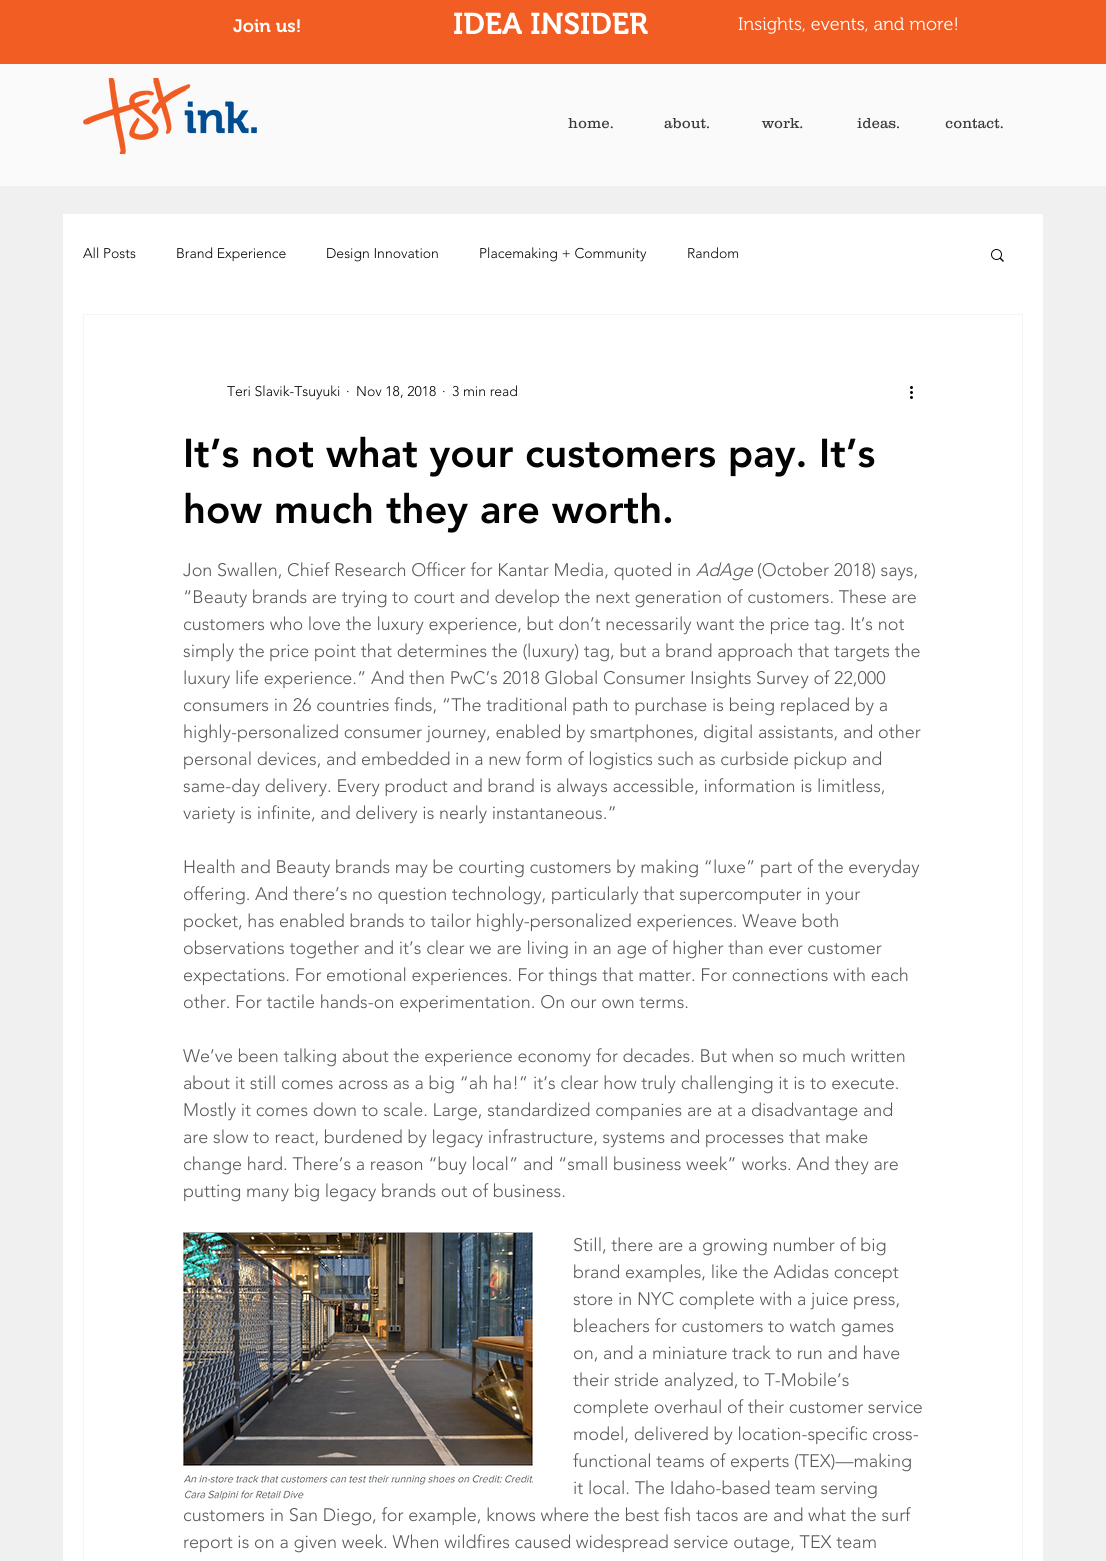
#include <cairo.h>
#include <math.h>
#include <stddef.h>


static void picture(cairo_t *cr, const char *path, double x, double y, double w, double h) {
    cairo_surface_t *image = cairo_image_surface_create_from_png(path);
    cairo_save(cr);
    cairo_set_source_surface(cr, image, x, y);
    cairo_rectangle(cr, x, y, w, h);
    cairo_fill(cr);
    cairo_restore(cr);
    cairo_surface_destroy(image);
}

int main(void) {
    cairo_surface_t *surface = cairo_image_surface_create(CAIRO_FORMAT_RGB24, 1106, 1561);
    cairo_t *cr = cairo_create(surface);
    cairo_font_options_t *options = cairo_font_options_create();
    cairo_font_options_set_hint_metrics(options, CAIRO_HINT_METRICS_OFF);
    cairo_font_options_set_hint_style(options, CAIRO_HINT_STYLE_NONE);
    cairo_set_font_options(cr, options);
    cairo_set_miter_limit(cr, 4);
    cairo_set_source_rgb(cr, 0.941, 0.941, 0.941);
    cairo_paint(cr);
    cairo_set_source_rgb(cr, 0.945, 0.365, 0.133);
    cairo_rectangle(cr, 0, 0, 1106, 64);
    cairo_fill(cr);
    cairo_select_font_face(cr, "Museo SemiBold", CAIRO_FONT_SLANT_NORMAL, CAIRO_FONT_WEIGHT_NORMAL);
    cairo_set_font_size(cr, 18);
    cairo_set_source_rgb(cr, 1, 1, 1);
    cairo_move_to(cr, 233, 32);
    cairo_show_text(cr, "Join us!");
    cairo_set_font_size(cr, 30);
    cairo_move_to(cr, 453, 34);
    cairo_show_text(cr, "IDEA INSIDER");
    cairo_select_font_face(cr, "Museo Light", CAIRO_FONT_SLANT_NORMAL, CAIRO_FONT_WEIGHT_NORMAL);
    cairo_set_font_size(cr, 18);
    cairo_move_to(cr, 738, 30);
    cairo_show_text(cr, "Insights, events, and more!");
    cairo_set_source_rgb(cr, 0.98, 0.98, 0.98);
    cairo_rectangle(cr, 0, 64, 1106, 122);
    cairo_fill(cr);
    picture(cr, "img1.png", 83, 78, 174, 76);
    cairo_select_font_face(cr, "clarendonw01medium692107 Light", CAIRO_FONT_SLANT_NORMAL, CAIRO_FONT_WEIGHT_NORMAL);
    cairo_set_font_size(cr, 15);
    cairo_set_source_rgb(cr, 0.22, 0.22, 0.22);
    cairo_move_to(cr, 568, 128);
    cairo_show_text(cr, "home.");
    cairo_move_to(cr, 664, 128);
    cairo_show_text(cr, "about.");
    cairo_move_to(cr, 762, 128);
    cairo_show_text(cr, "work.");
    cairo_move_to(cr, 857, 128);
    cairo_show_text(cr, "ideas.");
    cairo_move_to(cr, 945, 128);
    cairo_show_text(cr, "contact.");
    cairo_set_source_rgb(cr, 1, 1, 1);
    cairo_rectangle(cr, 63, 214, 980, 1347);
    cairo_fill(cr);
    cairo_select_font_face(cr, "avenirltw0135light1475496 Light", CAIRO_FONT_SLANT_NORMAL, CAIRO_FONT_WEIGHT_NORMAL);
    cairo_set_font_size(cr, 14);
    cairo_set_source_rgb(cr, 0.012, 0.012, 0.012);
    cairo_move_to(cr, 83, 258);
    cairo_show_text(cr, "All Posts");
    cairo_move_to(cr, 176, 258);
    cairo_show_text(cr, "Brand Experience");
    cairo_move_to(cr, 326, 258);
    cairo_show_text(cr, "Design Innovation");
    cairo_move_to(cr, 479, 258);
    cairo_show_text(cr, "Placemaking + Community");
    cairo_move_to(cr, 687, 258);
    cairo_show_text(cr, "Random");
    picture(cr, "img2.png", 991, 249, 13, 13);
    cairo_rectangle(cr, 83.5, 314.5, 939, 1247);
    cairo_set_source_rgb(cr, 0.957, 0.957, 0.957);
    cairo_set_line_width(cr, 1);
    cairo_stroke(cr);
    cairo_set_source_rgb(cr, 0.012, 0.012, 0.012);
    cairo_move_to(cr, 227, 396);
    cairo_show_text(cr, "Teri Slavik-Tsuyuki");
    cairo_move_to(cr, 346, 396);
    cairo_show_text(cr, "·");
    cairo_move_to(cr, 356, 396);
    cairo_show_text(cr, "Nov 18, 2018");
    cairo_move_to(cr, 442, 396);
    cairo_show_text(cr, "·");
    cairo_move_to(cr, 452, 396);
    cairo_show_text(cr, "3 min read");
    picture(cr, "img3.png", 910, 386, 3, 13);
    cairo_select_font_face(cr, "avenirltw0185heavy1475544 Black", CAIRO_FONT_SLANT_NORMAL, CAIRO_FONT_WEIGHT_NORMAL);
    cairo_set_font_size(cr, 40);
    cairo_move_to(cr, 183, 467);
    cairo_show_text(cr, "It’s not what your customers pay. It’s");
    cairo_move_to(cr, 183, 523);
    cairo_show_text(cr, "how much they are worth.");
    cairo_select_font_face(cr, "avenirltw0135light1475496 Light", CAIRO_FONT_SLANT_NORMAL, CAIRO_FONT_WEIGHT_NORMAL);
    cairo_set_font_size(cr, 18);
    cairo_set_source_rgb(cr, 0.349, 0.349, 0.349);
    cairo_move_to(cr, 183, 576);
    cairo_show_text(cr, "Jon Swallen, Chief Research Officer for Kantar Media, quoted in");
    cairo_select_font_face(cr, "avenirltw0135light1475496 Light", CAIRO_FONT_SLANT_ITALIC, CAIRO_FONT_WEIGHT_NORMAL);
    cairo_move_to(cr, 696, 576);
    cairo_show_text(cr, "AdAge");
    cairo_select_font_face(cr, "avenirltw0135light1475496 Light", CAIRO_FONT_SLANT_NORMAL, CAIRO_FONT_WEIGHT_NORMAL);
    cairo_move_to(cr, 757, 576);
    cairo_show_text(cr, "(October 2018) says,");
    cairo_move_to(cr, 183, 603);
    cairo_show_text(cr, "“Beauty brands are trying to court and develop the next generation of customers. These are");
    cairo_move_to(cr, 183, 630);
    cairo_show_text(cr, "customers who love the luxury experience, but don’t necessarily want the price tag. It’s not");
    cairo_move_to(cr, 183, 657);
    cairo_show_text(cr, "simply the price point that determines the (luxury) tag, but a brand approach that targets the");
    cairo_move_to(cr, 183, 684);
    cairo_show_text(cr, "luxury life experience.” And then PwC’s 2018 Global Consumer Insights Survey of 22,000");
    cairo_move_to(cr, 183, 711);
    cairo_show_text(cr, "consumers in 26 countries finds, “The traditional path to purchase is being replaced by a");
    cairo_move_to(cr, 183, 738);
    cairo_show_text(cr, "highly-personalized consumer journey, enabled by smartphones, digital assistants, and other");
    cairo_move_to(cr, 183, 765);
    cairo_show_text(cr, "personal devices, and embedded in a new form of logistics such as curbside pickup and");
    cairo_move_to(cr, 183, 792);
    cairo_show_text(cr, "same-day delivery. Every product and brand is always accessible, information is limitless,");
    cairo_move_to(cr, 183, 819);
    cairo_show_text(cr, "variety is infinite, and delivery is nearly instantaneous.”");
    cairo_move_to(cr, 183, 873);
    cairo_show_text(cr, "Health and Beauty brands may be courting customers by making “luxe” part of the everyday");
    cairo_move_to(cr, 183, 900);
    cairo_show_text(cr, "offering. And there’s no question technology, particularly that supercomputer in your");
    cairo_move_to(cr, 183, 927);
    cairo_show_text(cr, "pocket, has enabled brands to tailor highly-personalized experiences. Weave both");
    cairo_move_to(cr, 183, 954);
    cairo_show_text(cr, "observations together and it’s clear we are living in an age of higher than ever customer");
    cairo_move_to(cr, 183, 981);
    cairo_show_text(cr, "expectations. For emotional experiences. For things that matter. For connections with each");
    cairo_move_to(cr, 183, 1008);
    cairo_show_text(cr, "other. For tactile hands-on experimentation. On our own terms.");
    cairo_move_to(cr, 183, 1062);
    cairo_show_text(cr, "We’ve been talking about the experience economy for decades. But when so much written");
    cairo_move_to(cr, 183, 1089);
    cairo_show_text(cr, "about it still comes across as a big “ah ha!” it’s clear how truly challenging it is to execute.");
    cairo_move_to(cr, 183, 1116);
    cairo_show_text(cr, "Mostly it comes down to scale. Large, standardized companies are at a disadvantage and");
    cairo_move_to(cr, 183, 1143);
    cairo_show_text(cr, "are slow to react, burdened by legacy infrastructure, systems and processes that make");
    cairo_move_to(cr, 183, 1170);
    cairo_show_text(cr, "change hard. There’s a reason “buy local” and “small business week” works. And they are");
    cairo_move_to(cr, 183, 1197);
    cairo_show_text(cr, "putting many big legacy brands out of business.");
    picture(cr, "img4.png", 183, 1232, 350, 268);
    cairo_move_to(cr, 573, 1251);
    cairo_show_text(cr, "Still, there are a growing number of big");
    cairo_move_to(cr, 573, 1278);
    cairo_show_text(cr, "brand examples, like the Adidas concept");
    cairo_move_to(cr, 573, 1305);
    cairo_show_text(cr, "store in NYC complete with a juice press,");
    cairo_move_to(cr, 573, 1332);
    cairo_show_text(cr, "bleachers for customers to watch games");
    cairo_move_to(cr, 573, 1359);
    cairo_show_text(cr, "on, and a miniature track to run and have");
    cairo_move_to(cr, 573, 1386);
    cairo_show_text(cr, "their stride analyzed, to T-Mobile’s");
    cairo_move_to(cr, 573, 1413);
    cairo_show_text(cr, "complete overhaul of their customer service");
    cairo_move_to(cr, 573, 1440);
    cairo_show_text(cr, "model, delivered by location-specific cross-");
    cairo_move_to(cr, 573, 1467);
    cairo_show_text(cr, "functional teams of experts (TEX)—making");
    cairo_move_to(cr, 573, 1494);
    cairo_show_text(cr, "it local. The Idaho-based team serving");
    cairo_move_to(cr, 183, 1521);
    cairo_show_text(cr, "customers in San Diego, for example, knows where the best fish tacos are and what the surf");
    cairo_move_to(cr, 183, 1548);
    cairo_show_text(cr, "report is on a given week. When wildfires caused widespread service outage, TEX team");
    cairo_surface_write_to_png(surface, "page.png");
    cairo_font_options_destroy(options);
    cairo_destroy(cr);
    cairo_surface_destroy(surface);
    return 0;
}
